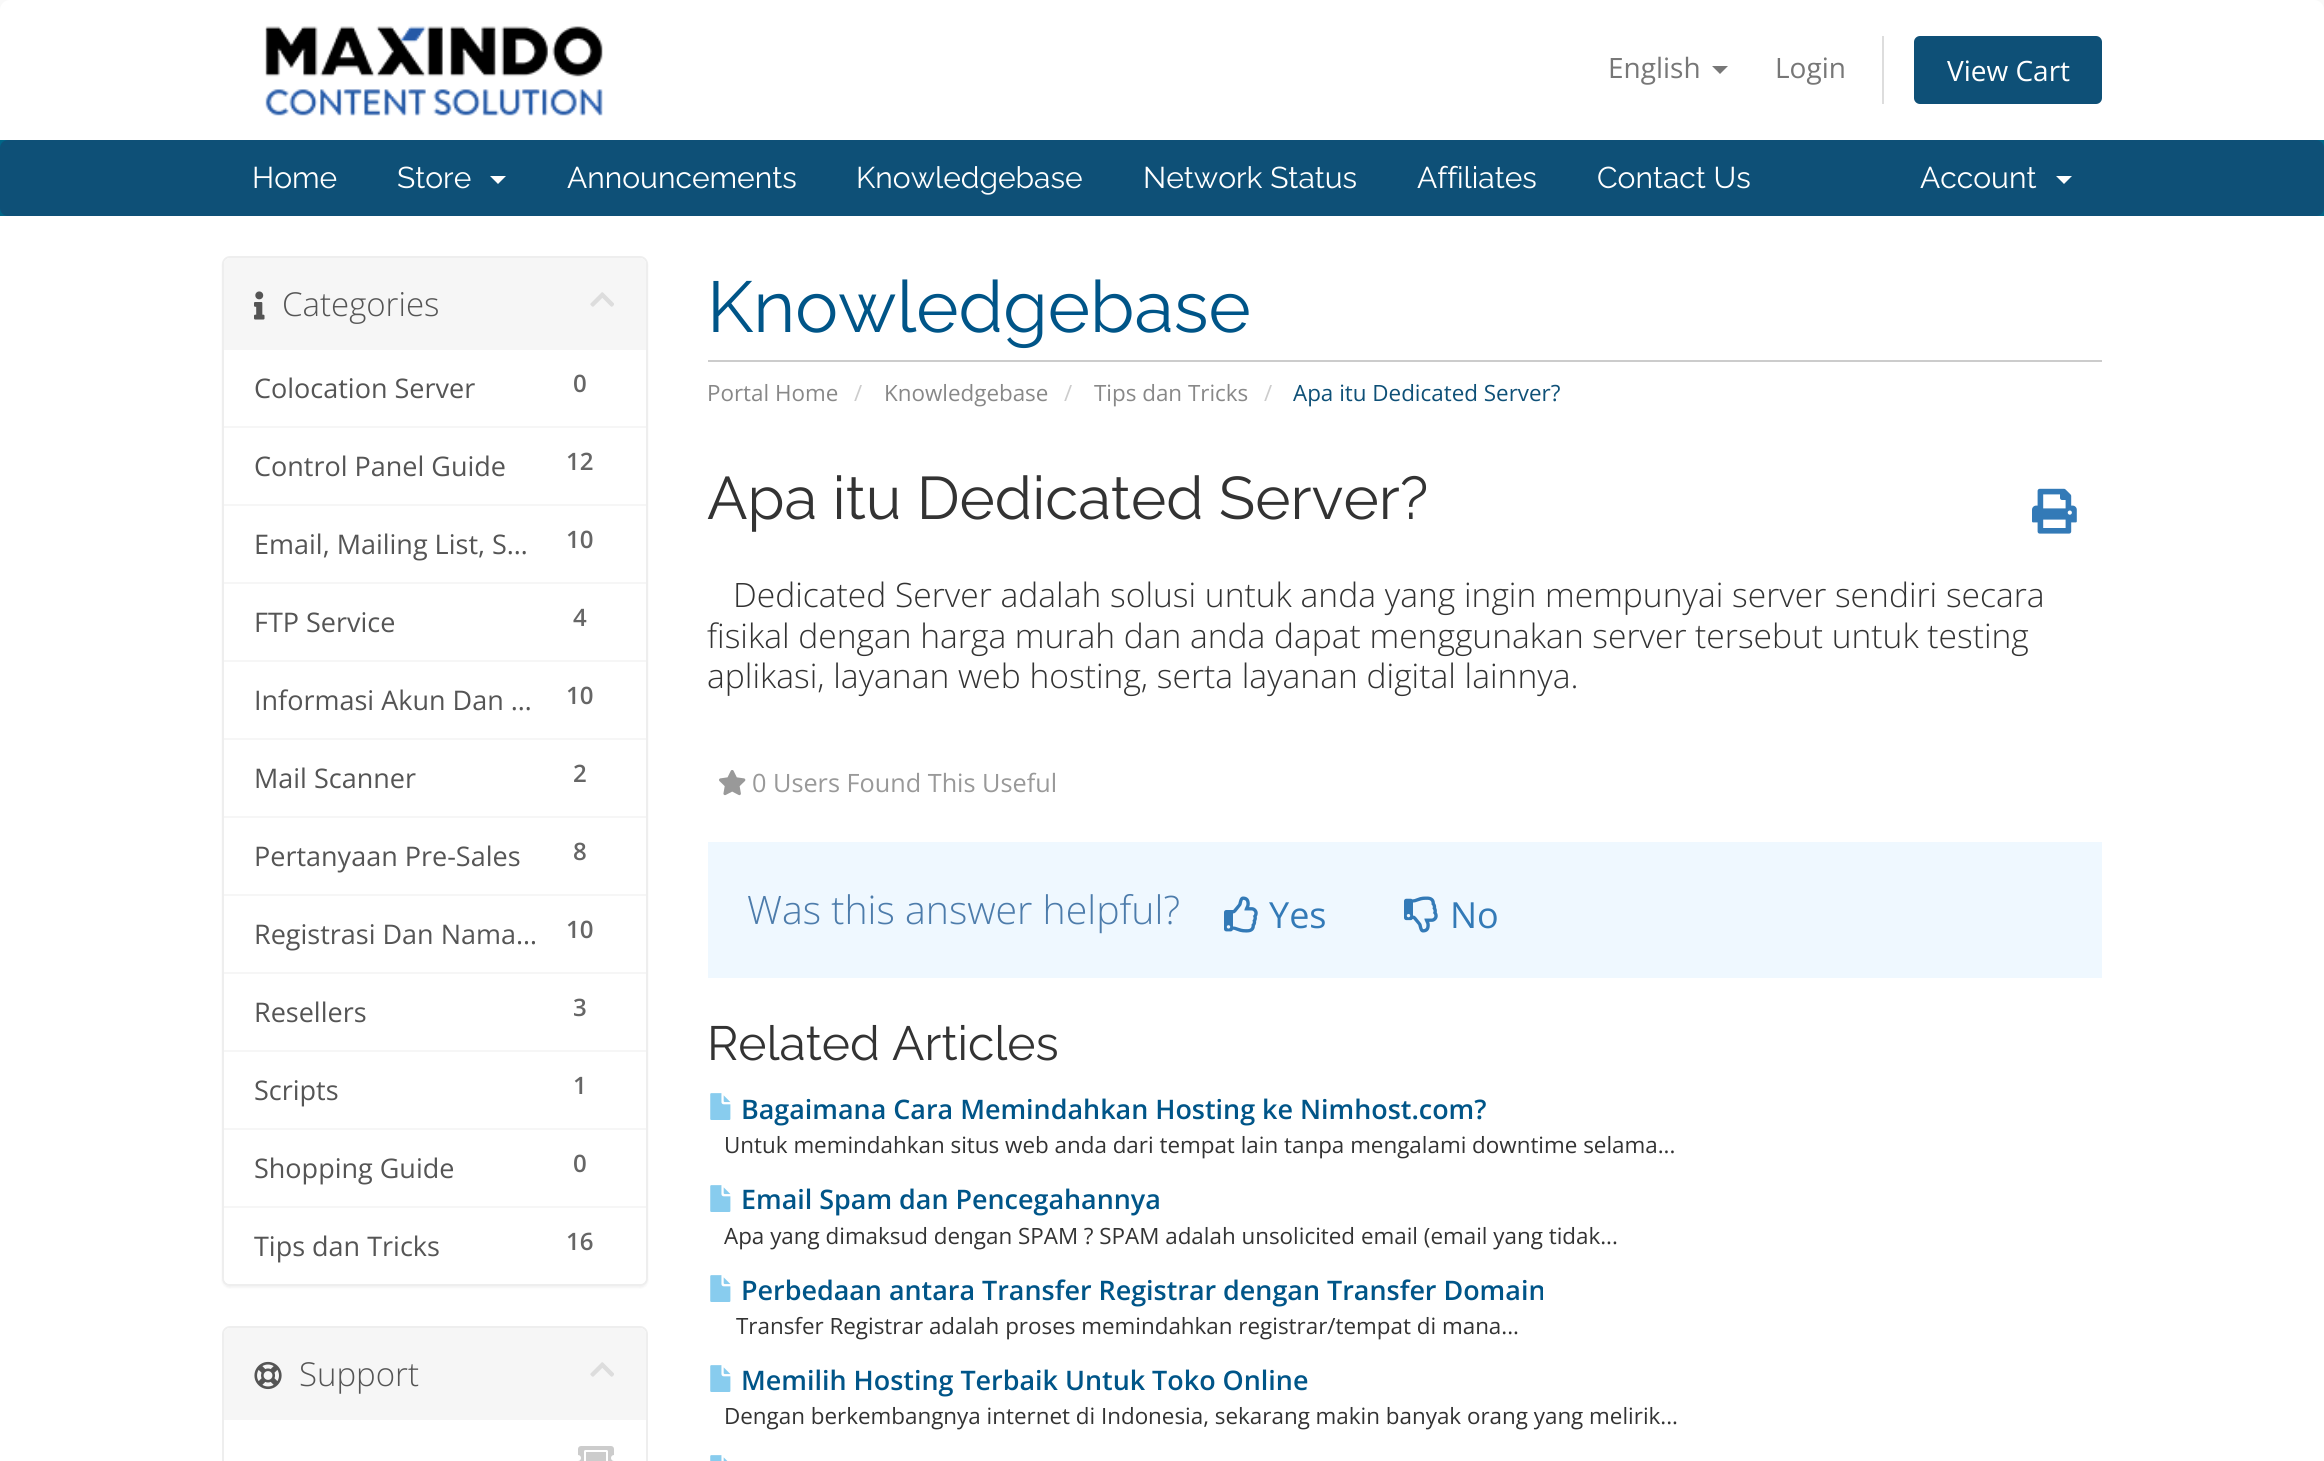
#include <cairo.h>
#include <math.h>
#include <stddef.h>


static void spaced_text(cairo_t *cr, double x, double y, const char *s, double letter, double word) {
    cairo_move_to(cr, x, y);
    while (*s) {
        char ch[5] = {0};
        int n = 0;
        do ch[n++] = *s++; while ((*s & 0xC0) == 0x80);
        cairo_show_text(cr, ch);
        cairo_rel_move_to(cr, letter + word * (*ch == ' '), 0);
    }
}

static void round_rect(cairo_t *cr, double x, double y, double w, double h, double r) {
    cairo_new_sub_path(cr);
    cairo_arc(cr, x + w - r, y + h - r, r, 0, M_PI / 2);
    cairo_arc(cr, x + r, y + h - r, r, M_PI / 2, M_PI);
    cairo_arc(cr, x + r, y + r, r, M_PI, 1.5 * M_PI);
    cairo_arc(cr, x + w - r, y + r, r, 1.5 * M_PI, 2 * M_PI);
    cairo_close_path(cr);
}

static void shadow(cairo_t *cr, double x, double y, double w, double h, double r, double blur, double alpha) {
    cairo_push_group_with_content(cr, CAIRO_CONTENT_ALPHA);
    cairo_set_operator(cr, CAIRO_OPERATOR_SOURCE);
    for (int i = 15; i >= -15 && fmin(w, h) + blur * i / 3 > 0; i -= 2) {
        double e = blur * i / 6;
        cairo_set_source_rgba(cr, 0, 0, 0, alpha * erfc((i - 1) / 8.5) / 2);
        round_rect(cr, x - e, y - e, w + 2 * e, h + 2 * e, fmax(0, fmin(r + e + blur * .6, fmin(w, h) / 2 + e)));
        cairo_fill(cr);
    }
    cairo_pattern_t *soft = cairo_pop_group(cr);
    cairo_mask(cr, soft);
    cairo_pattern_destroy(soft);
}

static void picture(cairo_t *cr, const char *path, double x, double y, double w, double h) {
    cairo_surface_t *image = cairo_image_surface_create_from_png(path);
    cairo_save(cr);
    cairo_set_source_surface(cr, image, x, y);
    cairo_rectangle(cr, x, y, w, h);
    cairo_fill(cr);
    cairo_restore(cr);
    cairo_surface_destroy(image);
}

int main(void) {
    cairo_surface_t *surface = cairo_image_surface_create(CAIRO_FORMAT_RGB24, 2324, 1461);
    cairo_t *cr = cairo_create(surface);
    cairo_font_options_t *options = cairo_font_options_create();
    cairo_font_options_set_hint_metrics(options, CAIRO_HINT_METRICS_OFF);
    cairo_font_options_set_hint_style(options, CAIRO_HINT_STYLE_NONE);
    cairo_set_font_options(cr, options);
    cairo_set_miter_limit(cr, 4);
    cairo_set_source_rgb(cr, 0.973, 0.973, 0.973);
    cairo_paint(cr);
    cairo_set_source_rgb(cr, 1, 1, 1);
    cairo_new_path(cr);
    cairo_move_to(cr, 10, 0);
    cairo_line_to(cr, 2314, 0);
    cairo_curve_to(cr, 2319.5, 0, 2324, 4.5, 2324, 10);
    cairo_line_to(cr, 2324, 140);
    cairo_line_to(cr, 0, 140);
    cairo_line_to(cr, 0, 10);
    cairo_curve_to(cr, 0, 4.5, 4.5, 0, 10, 0);
    cairo_close_path(cr);
    cairo_fill(cr);
    picture(cr, "img1.png", 265, 26, 338, 90);
    cairo_select_font_face(cr, "Open Sans", CAIRO_FONT_SLANT_NORMAL, CAIRO_FONT_WEIGHT_NORMAL);
    cairo_set_font_size(cr, 28);
    cairo_set_source_rgb(cr, 0.467, 0.467, 0.467);
    cairo_move_to(cr, 1608, 78);
    cairo_show_text(cr, "English");
    cairo_new_path(cr);
    cairo_move_to(cr, 1712, 66);
    cairo_line_to(cr, 1728, 66);
    cairo_line_to(cr, 1720, 74);
    cairo_close_path(cr);
    cairo_fill(cr);
    cairo_move_to(cr, 1775, 78);
    cairo_show_text(cr, "Login");
    cairo_set_source_rgb(cr, 0.867, 0.867, 0.867);
    cairo_rectangle(cr, 1882, 36, 2, 68);
    cairo_fill(cr);
    cairo_set_source_rgb(cr, 0.055, 0.314, 0.467);
    round_rect(cr, 1914, 36, 188, 68, 6);
    cairo_fill(cr);
    cairo_set_source_rgb(cr, 1, 1, 1);
    cairo_move_to(cr, 1947, 81);
    cairo_show_text(cr, "View Cart");
    cairo_set_source_rgb(cr, 0, 0.4, 0.529);
    cairo_rectangle(cr, 0, 140, 2324, 76);
    cairo_fill(cr);
    cairo_set_source_rgb(cr, 0.055, 0.314, 0.467);
    round_rect(cr, 0, 140, 2324, 76, 8);
    cairo_fill(cr);
    cairo_select_font_face(cr, "Raleway", CAIRO_FONT_SLANT_NORMAL, CAIRO_FONT_WEIGHT_NORMAL);
    cairo_set_font_size(cr, 30);
    cairo_set_source_rgb(cr, 1, 1, 1);
    cairo_move_to(cr, 252, 188);
    cairo_show_text(cr, "Home");
    cairo_move_to(cr, 397, 188);
    cairo_show_text(cr, "Store");
    cairo_new_path(cr);
    cairo_move_to(cr, 490, 176);
    cairo_line_to(cr, 506, 176);
    cairo_line_to(cr, 498, 184);
    cairo_close_path(cr);
    cairo_fill(cr);
    cairo_move_to(cr, 567, 188);
    cairo_show_text(cr, "Announcements");
    cairo_move_to(cr, 856, 188);
    cairo_show_text(cr, "Knowledgebase");
    cairo_move_to(cr, 1143, 188);
    cairo_show_text(cr, "Network Status");
    cairo_move_to(cr, 1417, 188);
    cairo_show_text(cr, "Affiliates");
    cairo_move_to(cr, 1597, 188);
    cairo_show_text(cr, "Contact Us");
    cairo_move_to(cr, 1920, 188);
    cairo_show_text(cr, "Account");
    cairo_new_path(cr);
    cairo_move_to(cr, 2056, 176);
    cairo_line_to(cr, 2072, 176);
    cairo_line_to(cr, 2064, 184);
    cairo_close_path(cr);
    cairo_fill(cr);
    cairo_rectangle(cr, 0, 216, 2324, 1245);
    cairo_fill(cr);
    cairo_set_source_rgb(cr, 0, 0, 0);
    shadow(cr, 222, 258, 426, 1030, 8, 1, 0.05);
    cairo_set_source_rgb(cr, 1, 1, 1);
    round_rect(cr, 223, 257, 424, 1028, 7);
    cairo_fill_preserve(cr);
    cairo_set_source_rgb(cr, 0.933, 0.933, 0.933);
    cairo_stroke(cr);
    cairo_set_source_rgb(cr, 0.961, 0.961, 0.961);
    cairo_new_path(cr);
    cairo_move_to(cr, 230, 258);
    cairo_line_to(cr, 640, 258);
    cairo_curve_to(cr, 643.5, 258, 646, 260.5, 646, 264);
    cairo_line_to(cr, 646, 350);
    cairo_line_to(cr, 224, 350);
    cairo_line_to(cr, 224, 264);
    cairo_curve_to(cr, 224, 260.5, 226.5, 258, 230, 258);
    cairo_close_path(cr);
    cairo_fill(cr);
    picture(cr, "img2.png", 254, 291, 11, 29);
    cairo_select_font_face(cr, "Open Sans Light", CAIRO_FONT_SLANT_NORMAL, CAIRO_FONT_WEIGHT_NORMAL);
    cairo_set_font_size(cr, 33);
    cairo_set_source_rgb(cr, 0.333, 0.333, 0.333);
    cairo_move_to(cr, 282, 316);
    cairo_show_text(cr, "Categories");
    picture(cr, "img3.png", 590, 292, 24, 15);
    cairo_set_source_rgb(cr, 0.961, 0.961, 0.961);
    cairo_rectangle(cr, 224, 426, 422, 2);
    cairo_fill(cr);
    cairo_select_font_face(cr, "Open Sans", CAIRO_FONT_SLANT_NORMAL, CAIRO_FONT_WEIGHT_NORMAL);
    cairo_set_font_size(cr, 27);
    cairo_set_source_rgb(cr, 0.333, 0.333, 0.333);
    cairo_move_to(cr, 254, 398);
    cairo_show_text(cr, "Colocation Server");
    cairo_select_font_face(cr, "Open Sans SemiBold", CAIRO_FONT_SLANT_NORMAL, CAIRO_FONT_WEIGHT_NORMAL);
    cairo_set_font_size(cr, 24);
    cairo_set_source_rgb(cr, 0.4, 0.4, 0.4);
    cairo_move_to(cr, 573, 392);
    cairo_show_text(cr, "0");
    cairo_set_source_rgb(cr, 0.961, 0.961, 0.961);
    cairo_rectangle(cr, 224, 504, 422, 2);
    cairo_fill(cr);
    cairo_select_font_face(cr, "Open Sans", CAIRO_FONT_SLANT_NORMAL, CAIRO_FONT_WEIGHT_NORMAL);
    cairo_set_font_size(cr, 27);
    cairo_set_source_rgb(cr, 0.333, 0.333, 0.333);
    cairo_move_to(cr, 254, 476);
    cairo_show_text(cr, "Control Panel Guide");
    cairo_select_font_face(cr, "Open Sans SemiBold", CAIRO_FONT_SLANT_NORMAL, CAIRO_FONT_WEIGHT_NORMAL);
    cairo_set_font_size(cr, 24);
    cairo_set_source_rgb(cr, 0.4, 0.4, 0.4);
    cairo_move_to(cr, 566, 470);
    cairo_show_text(cr, "12");
    cairo_set_source_rgb(cr, 0.961, 0.961, 0.961);
    cairo_rectangle(cr, 224, 582, 422, 2);
    cairo_fill(cr);
    cairo_select_font_face(cr, "Open Sans", CAIRO_FONT_SLANT_NORMAL, CAIRO_FONT_WEIGHT_NORMAL);
    cairo_set_font_size(cr, 27);
    cairo_set_source_rgb(cr, 0.333, 0.333, 0.333);
    cairo_move_to(cr, 254, 554);
    cairo_show_text(cr, "Email, Mailing List, S…");
    cairo_select_font_face(cr, "Open Sans SemiBold", CAIRO_FONT_SLANT_NORMAL, CAIRO_FONT_WEIGHT_NORMAL);
    cairo_set_font_size(cr, 24);
    cairo_set_source_rgb(cr, 0.4, 0.4, 0.4);
    cairo_move_to(cr, 566, 548);
    cairo_show_text(cr, "10");
    cairo_set_source_rgb(cr, 0.961, 0.961, 0.961);
    cairo_rectangle(cr, 224, 660, 422, 2);
    cairo_fill(cr);
    cairo_select_font_face(cr, "Open Sans", CAIRO_FONT_SLANT_NORMAL, CAIRO_FONT_WEIGHT_NORMAL);
    cairo_set_font_size(cr, 27);
    cairo_set_source_rgb(cr, 0.333, 0.333, 0.333);
    cairo_move_to(cr, 254, 632);
    cairo_show_text(cr, "FTP Service");
    cairo_select_font_face(cr, "Open Sans SemiBold", CAIRO_FONT_SLANT_NORMAL, CAIRO_FONT_WEIGHT_NORMAL);
    cairo_set_font_size(cr, 24);
    cairo_set_source_rgb(cr, 0.4, 0.4, 0.4);
    cairo_move_to(cr, 573, 626);
    cairo_show_text(cr, "4");
    cairo_set_source_rgb(cr, 0.961, 0.961, 0.961);
    cairo_rectangle(cr, 224, 738, 422, 2);
    cairo_fill(cr);
    cairo_select_font_face(cr, "Open Sans", CAIRO_FONT_SLANT_NORMAL, CAIRO_FONT_WEIGHT_NORMAL);
    cairo_set_font_size(cr, 27);
    cairo_set_source_rgb(cr, 0.333, 0.333, 0.333);
    cairo_move_to(cr, 254, 710);
    cairo_show_text(cr, "Informasi Akun Dan …");
    cairo_select_font_face(cr, "Open Sans SemiBold", CAIRO_FONT_SLANT_NORMAL, CAIRO_FONT_WEIGHT_NORMAL);
    cairo_set_font_size(cr, 24);
    cairo_set_source_rgb(cr, 0.4, 0.4, 0.4);
    cairo_move_to(cr, 566, 704);
    cairo_show_text(cr, "10");
    cairo_set_source_rgb(cr, 0.961, 0.961, 0.961);
    cairo_rectangle(cr, 224, 816, 422, 2);
    cairo_fill(cr);
    cairo_select_font_face(cr, "Open Sans", CAIRO_FONT_SLANT_NORMAL, CAIRO_FONT_WEIGHT_NORMAL);
    cairo_set_font_size(cr, 27);
    cairo_set_source_rgb(cr, 0.333, 0.333, 0.333);
    cairo_move_to(cr, 254, 788);
    cairo_show_text(cr, "Mail Scanner");
    cairo_select_font_face(cr, "Open Sans SemiBold", CAIRO_FONT_SLANT_NORMAL, CAIRO_FONT_WEIGHT_NORMAL);
    cairo_set_font_size(cr, 24);
    cairo_set_source_rgb(cr, 0.4, 0.4, 0.4);
    cairo_move_to(cr, 573, 782);
    cairo_show_text(cr, "2");
    cairo_set_source_rgb(cr, 0.961, 0.961, 0.961);
    cairo_rectangle(cr, 224, 894, 422, 2);
    cairo_fill(cr);
    cairo_select_font_face(cr, "Open Sans", CAIRO_FONT_SLANT_NORMAL, CAIRO_FONT_WEIGHT_NORMAL);
    cairo_set_font_size(cr, 27);
    cairo_set_source_rgb(cr, 0.333, 0.333, 0.333);
    cairo_move_to(cr, 254, 866);
    cairo_show_text(cr, "Pertanyaan Pre-Sales");
    cairo_select_font_face(cr, "Open Sans SemiBold", CAIRO_FONT_SLANT_NORMAL, CAIRO_FONT_WEIGHT_NORMAL);
    cairo_set_font_size(cr, 24);
    cairo_set_source_rgb(cr, 0.4, 0.4, 0.4);
    cairo_move_to(cr, 573, 860);
    cairo_show_text(cr, "8");
    cairo_set_source_rgb(cr, 0.961, 0.961, 0.961);
    cairo_rectangle(cr, 224, 972, 422, 2);
    cairo_fill(cr);
    cairo_select_font_face(cr, "Open Sans", CAIRO_FONT_SLANT_NORMAL, CAIRO_FONT_WEIGHT_NORMAL);
    cairo_set_font_size(cr, 27);
    cairo_set_source_rgb(cr, 0.333, 0.333, 0.333);
    cairo_move_to(cr, 254, 944);
    cairo_show_text(cr, "Registrasi Dan Nama…");
    cairo_select_font_face(cr, "Open Sans SemiBold", CAIRO_FONT_SLANT_NORMAL, CAIRO_FONT_WEIGHT_NORMAL);
    cairo_set_font_size(cr, 24);
    cairo_set_source_rgb(cr, 0.4, 0.4, 0.4);
    cairo_move_to(cr, 566, 938);
    cairo_show_text(cr, "10");
    cairo_set_source_rgb(cr, 0.961, 0.961, 0.961);
    cairo_rectangle(cr, 224, 1050, 422, 2);
    cairo_fill(cr);
    cairo_select_font_face(cr, "Open Sans", CAIRO_FONT_SLANT_NORMAL, CAIRO_FONT_WEIGHT_NORMAL);
    cairo_set_font_size(cr, 27);
    cairo_set_source_rgb(cr, 0.333, 0.333, 0.333);
    cairo_move_to(cr, 254, 1022);
    cairo_show_text(cr, "Resellers");
    cairo_select_font_face(cr, "Open Sans SemiBold", CAIRO_FONT_SLANT_NORMAL, CAIRO_FONT_WEIGHT_NORMAL);
    cairo_set_font_size(cr, 24);
    cairo_set_source_rgb(cr, 0.4, 0.4, 0.4);
    cairo_move_to(cr, 573, 1016);
    cairo_show_text(cr, "3");
    cairo_set_source_rgb(cr, 0.961, 0.961, 0.961);
    cairo_rectangle(cr, 224, 1128, 422, 2);
    cairo_fill(cr);
    cairo_select_font_face(cr, "Open Sans", CAIRO_FONT_SLANT_NORMAL, CAIRO_FONT_WEIGHT_NORMAL);
    cairo_set_font_size(cr, 27);
    cairo_set_source_rgb(cr, 0.333, 0.333, 0.333);
    cairo_move_to(cr, 254, 1100);
    cairo_show_text(cr, "Scripts");
    cairo_select_font_face(cr, "Open Sans SemiBold", CAIRO_FONT_SLANT_NORMAL, CAIRO_FONT_WEIGHT_NORMAL);
    cairo_set_font_size(cr, 24);
    cairo_set_source_rgb(cr, 0.4, 0.4, 0.4);
    cairo_move_to(cr, 573, 1094);
    cairo_show_text(cr, "1");
    cairo_select_font_face(cr, "Open Sans", CAIRO_FONT_SLANT_NORMAL, CAIRO_FONT_WEIGHT_NORMAL);
    cairo_set_font_size(cr, 27);
    cairo_set_source_rgb(cr, 0.333, 0.333, 0.333);
    cairo_move_to(cr, 254, 1178);
    cairo_show_text(cr, "Shopping Guide");
    cairo_select_font_face(cr, "Open Sans SemiBold", CAIRO_FONT_SLANT_NORMAL, CAIRO_FONT_WEIGHT_NORMAL);
    cairo_set_font_size(cr, 24);
    cairo_set_source_rgb(cr, 0.4, 0.4, 0.4);
    cairo_move_to(cr, 573, 1172);
    cairo_show_text(cr, "0");
    cairo_set_source_rgb(cr, 1, 1, 1);
    cairo_new_path(cr);
    cairo_move_to(cr, 224, 1206);
    cairo_line_to(cr, 646, 1206);
    cairo_line_to(cr, 646, 1278);
    cairo_curve_to(cr, 646, 1281.5, 643.5, 1284, 640, 1284);
    cairo_line_to(cr, 230, 1284);
    cairo_curve_to(cr, 226.5, 1284, 224, 1281.5, 224, 1278);
    cairo_close_path(cr);
    cairo_fill(cr);
    cairo_set_source_rgb(cr, 0.961, 0.961, 0.961);
    cairo_rectangle(cr, 224, 1206, 422, 2);
    cairo_fill(cr);
    cairo_select_font_face(cr, "Open Sans", CAIRO_FONT_SLANT_NORMAL, CAIRO_FONT_WEIGHT_NORMAL);
    cairo_set_font_size(cr, 27);
    cairo_set_source_rgb(cr, 0.333, 0.333, 0.333);
    cairo_move_to(cr, 254, 1256);
    cairo_show_text(cr, "Tips dan Tricks");
    cairo_select_font_face(cr, "Open Sans SemiBold", CAIRO_FONT_SLANT_NORMAL, CAIRO_FONT_WEIGHT_NORMAL);
    cairo_set_font_size(cr, 24);
    cairo_set_source_rgb(cr, 0.4, 0.4, 0.4);
    cairo_move_to(cr, 566, 1250);
    cairo_show_text(cr, "16");
    cairo_set_source_rgb(cr, 0.8, 0.8, 0.8);
    cairo_rectangle(cr, 708, 360, 1394, 2);
    cairo_fill(cr);
    cairo_select_font_face(cr, "Raleway", CAIRO_FONT_SLANT_NORMAL, CAIRO_FONT_WEIGHT_NORMAL);
    cairo_set_font_size(cr, 72);
    cairo_set_source_rgb(cr, 0, 0.333, 0.533);
    cairo_move_to(cr, 707, 332);
    cairo_show_text(cr, "Knowledgebase");
    cairo_select_font_face(cr, "Open Sans", CAIRO_FONT_SLANT_NORMAL, CAIRO_FONT_WEIGHT_NORMAL);
    cairo_set_font_size(cr, 22.4);
    cairo_set_source_rgb(cr, 0.533, 0.533, 0.533);
    cairo_move_to(cr, 707, 401);
    cairo_show_text(cr, "Portal Home");
    cairo_set_source_rgb(cr, 0.8, 0.8, 0.8);
    cairo_move_to(cr, 854, 401);
    cairo_show_text(cr, "/");
    cairo_set_source_rgb(cr, 0.533, 0.533, 0.533);
    cairo_move_to(cr, 884, 401);
    cairo_show_text(cr, "Knowledgebase");
    cairo_set_source_rgb(cr, 0.8, 0.8, 0.8);
    cairo_move_to(cr, 1064, 401);
    cairo_show_text(cr, "/");
    cairo_set_source_rgb(cr, 0.533, 0.533, 0.533);
    cairo_move_to(cr, 1094, 401);
    cairo_show_text(cr, "Tips dan Tricks");
    cairo_set_source_rgb(cr, 0.8, 0.8, 0.8);
    cairo_move_to(cr, 1264, 401);
    cairo_show_text(cr, "/");
    cairo_set_source_rgb(cr, 0.055, 0.314, 0.467);
    cairo_move_to(cr, 1293, 401);
    cairo_show_text(cr, "Apa itu Dedicated Server?");
    round_rect(cr, 223, 1327, 424, 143, 7);
    cairo_set_source_rgb(cr, 0.933, 0.933, 0.933);
    cairo_stroke(cr);
    cairo_set_source_rgb(cr, 0.961, 0.961, 0.961);
    cairo_new_path(cr);
    cairo_move_to(cr, 230, 1328);
    cairo_line_to(cr, 640, 1328);
    cairo_curve_to(cr, 643.5, 1328, 646, 1330.5, 646, 1334);
    cairo_line_to(cr, 646, 1420);
    cairo_line_to(cr, 224, 1420);
    cairo_line_to(cr, 224, 1334);
    cairo_curve_to(cr, 224, 1330.5, 226.5, 1328, 230, 1328);
    cairo_close_path(cr);
    cairo_fill(cr);
    picture(cr, "img4.png", 254, 1361, 28, 29);
    cairo_select_font_face(cr, "Open Sans Light", CAIRO_FONT_SLANT_NORMAL, CAIRO_FONT_WEIGHT_NORMAL);
    cairo_set_font_size(cr, 33);
    cairo_set_source_rgb(cr, 0.333, 0.333, 0.333);
    cairo_move_to(cr, 299, 1386);
    cairo_show_text(cr, "Support");
    picture(cr, "img3.png", 590, 1362, 24, 15);
    picture(cr, "img5.png", 578, 1446, 36, 15);
    cairo_select_font_face(cr, "Raleway", CAIRO_FONT_SLANT_NORMAL, CAIRO_FONT_WEIGHT_NORMAL);
    cairo_set_font_size(cr, 60);
    cairo_set_source_rgb(cr, 0.2, 0.2, 0.2);
    cairo_move_to(cr, 707, 519);
    cairo_show_text(cr, "Apa itu Dedicated Server?");
    picture(cr, "img6.png", 2032, 488, 45, 46);
    cairo_select_font_face(cr, "Open Sans Light", CAIRO_FONT_SLANT_NORMAL, CAIRO_FONT_WEIGHT_NORMAL);
    cairo_set_font_size(cr, 33.6);
    cairo_move_to(cr, 733, 607);
    cairo_show_text(cr, "Dedicated Server adalah solusi untuk anda yang ingin mempunyai server sendiri secara");
    spaced_text(cr, 707, 648, "fisikal dengan harga murah dan anda dapat menggunakan server tersebut untuk testing", 0, -0.1);
    cairo_move_to(cr, 707, 688);
    cairo_show_text(cr, "aplikasi, layanan web hosting, serta layanan digital lainnya.");
    picture(cr, "img7.png", 719, 770, 27, 26);
    cairo_select_font_face(cr, "Open Sans", CAIRO_FONT_SLANT_NORMAL, CAIRO_FONT_WEIGHT_NORMAL);
    cairo_set_font_size(cr, 25.25);
    cairo_set_source_rgb(cr, 0.6, 0.6, 0.6);
    cairo_move_to(cr, 752, 792);
    cairo_show_text(cr, "0 Users Found This Useful");
    cairo_set_source_rgb(cr, 0.937, 0.969, 1);
    cairo_rectangle(cr, 708, 842, 1394, 136);
    cairo_fill(cr);
    cairo_select_font_face(cr, "Open Sans Light", CAIRO_FONT_SLANT_NORMAL, CAIRO_FONT_WEIGHT_NORMAL);
    cairo_set_font_size(cr, 39.25);
    cairo_set_source_rgb(cr, 0.302, 0.486, 0.671);
    cairo_move_to(cr, 747, 924);
    cairo_show_text(cr, "Was this answer helpful?");
    picture(cr, "img8.png", 1224, 896, 34, 37);
    cairo_select_font_face(cr, "Open Sans", CAIRO_FONT_SLANT_NORMAL, CAIRO_FONT_WEIGHT_NORMAL);
    cairo_set_font_size(cr, 36);
    cairo_set_source_rgb(cr, 0.2, 0.478, 0.718);
    cairo_move_to(cr, 1269, 928);
    cairo_show_text(cr, "Yes");
    picture(cr, "img9.png", 1404, 896, 34, 37);
    cairo_move_to(cr, 1450, 928);
    cairo_show_text(cr, "No");
    cairo_select_font_face(cr, "Raleway", CAIRO_FONT_SLANT_NORMAL, CAIRO_FONT_WEIGHT_NORMAL);
    cairo_set_font_size(cr, 48);
    cairo_set_source_rgb(cr, 0.2, 0.2, 0.2);
    cairo_move_to(cr, 707, 1060);
    cairo_show_text(cr, "Related Articles");
    picture(cr, "img10.png", 710, 1093, 21, 27);
    cairo_select_font_face(cr, "Open Sans SemiBold", CAIRO_FONT_SLANT_NORMAL, CAIRO_FONT_WEIGHT_NORMAL);
    cairo_set_font_size(cr, 26.9);
    cairo_set_source_rgb(cr, 0, 0.333, 0.533);
    cairo_move_to(cr, 741, 1119);
    cairo_show_text(cr, "Bagaimana Cara Memindahkan Hosting ke Nimhost.com?");
    cairo_select_font_face(cr, "Open Sans", CAIRO_FONT_SLANT_NORMAL, CAIRO_FONT_WEIGHT_NORMAL);
    cairo_set_font_size(cr, 22.4);
    cairo_set_source_rgb(cr, 0.2, 0.2, 0.2);
    cairo_move_to(cr, 724, 1153);
    cairo_show_text(cr, "Untuk memindahkan situs web anda dari tempat lain tanpa mengalami downtime selama...");
    picture(cr, "img10.png", 710, 1185, 21, 27);
    cairo_select_font_face(cr, "Open Sans SemiBold", CAIRO_FONT_SLANT_NORMAL, CAIRO_FONT_WEIGHT_NORMAL);
    cairo_set_font_size(cr, 26.9);
    cairo_set_source_rgb(cr, 0, 0.333, 0.533);
    cairo_move_to(cr, 741, 1209);
    cairo_show_text(cr, "Email Spam dan Pencegahannya");
    cairo_select_font_face(cr, "Open Sans", CAIRO_FONT_SLANT_NORMAL, CAIRO_FONT_WEIGHT_NORMAL);
    cairo_set_font_size(cr, 22.4);
    cairo_set_source_rgb(cr, 0.2, 0.2, 0.2);
    cairo_move_to(cr, 724, 1244);
    cairo_show_text(cr, "Apa yang dimaksud dengan SPAM ? SPAM adalah unsolicited email (email yang tidak...");
    picture(cr, "img10.png", 710, 1275, 21, 27);
    cairo_select_font_face(cr, "Open Sans SemiBold", CAIRO_FONT_SLANT_NORMAL, CAIRO_FONT_WEIGHT_NORMAL);
    cairo_set_font_size(cr, 26.9);
    cairo_set_source_rgb(cr, 0, 0.333, 0.533);
    cairo_move_to(cr, 741, 1300);
    cairo_show_text(cr, "Perbedaan antara Transfer Registrar dengan Transfer Domain");
    cairo_select_font_face(cr, "Open Sans", CAIRO_FONT_SLANT_NORMAL, CAIRO_FONT_WEIGHT_NORMAL);
    cairo_set_font_size(cr, 22.4);
    cairo_set_source_rgb(cr, 0.2, 0.2, 0.2);
    cairo_move_to(cr, 736, 1334);
    cairo_show_text(cr, "Transfer Registrar adalah proses memindahkan registrar/tempat di mana...");
    picture(cr, "img10.png", 710, 1365, 21, 27);
    cairo_select_font_face(cr, "Open Sans SemiBold", CAIRO_FONT_SLANT_NORMAL, CAIRO_FONT_WEIGHT_NORMAL);
    cairo_set_font_size(cr, 26.9);
    cairo_set_source_rgb(cr, 0, 0.333, 0.533);
    cairo_move_to(cr, 741, 1390);
    cairo_show_text(cr, "Memilih Hosting Terbaik Untuk Toko Online");
    cairo_select_font_face(cr, "Open Sans", CAIRO_FONT_SLANT_NORMAL, CAIRO_FONT_WEIGHT_NORMAL);
    cairo_set_font_size(cr, 22.4);
    cairo_set_source_rgb(cr, 0.2, 0.2, 0.2);
    cairo_move_to(cr, 724, 1424);
    cairo_show_text(cr, "Dengan berkembangnya internet di Indonesia, sekarang makin banyak orang yang melirik...");
    picture(cr, "img11.png", 710, 1455, 18, 6);
    cairo_surface_write_to_png(surface, "page.png");
    cairo_font_options_destroy(options);
    cairo_destroy(cr);
    cairo_surface_destroy(surface);
    return 0;
}
